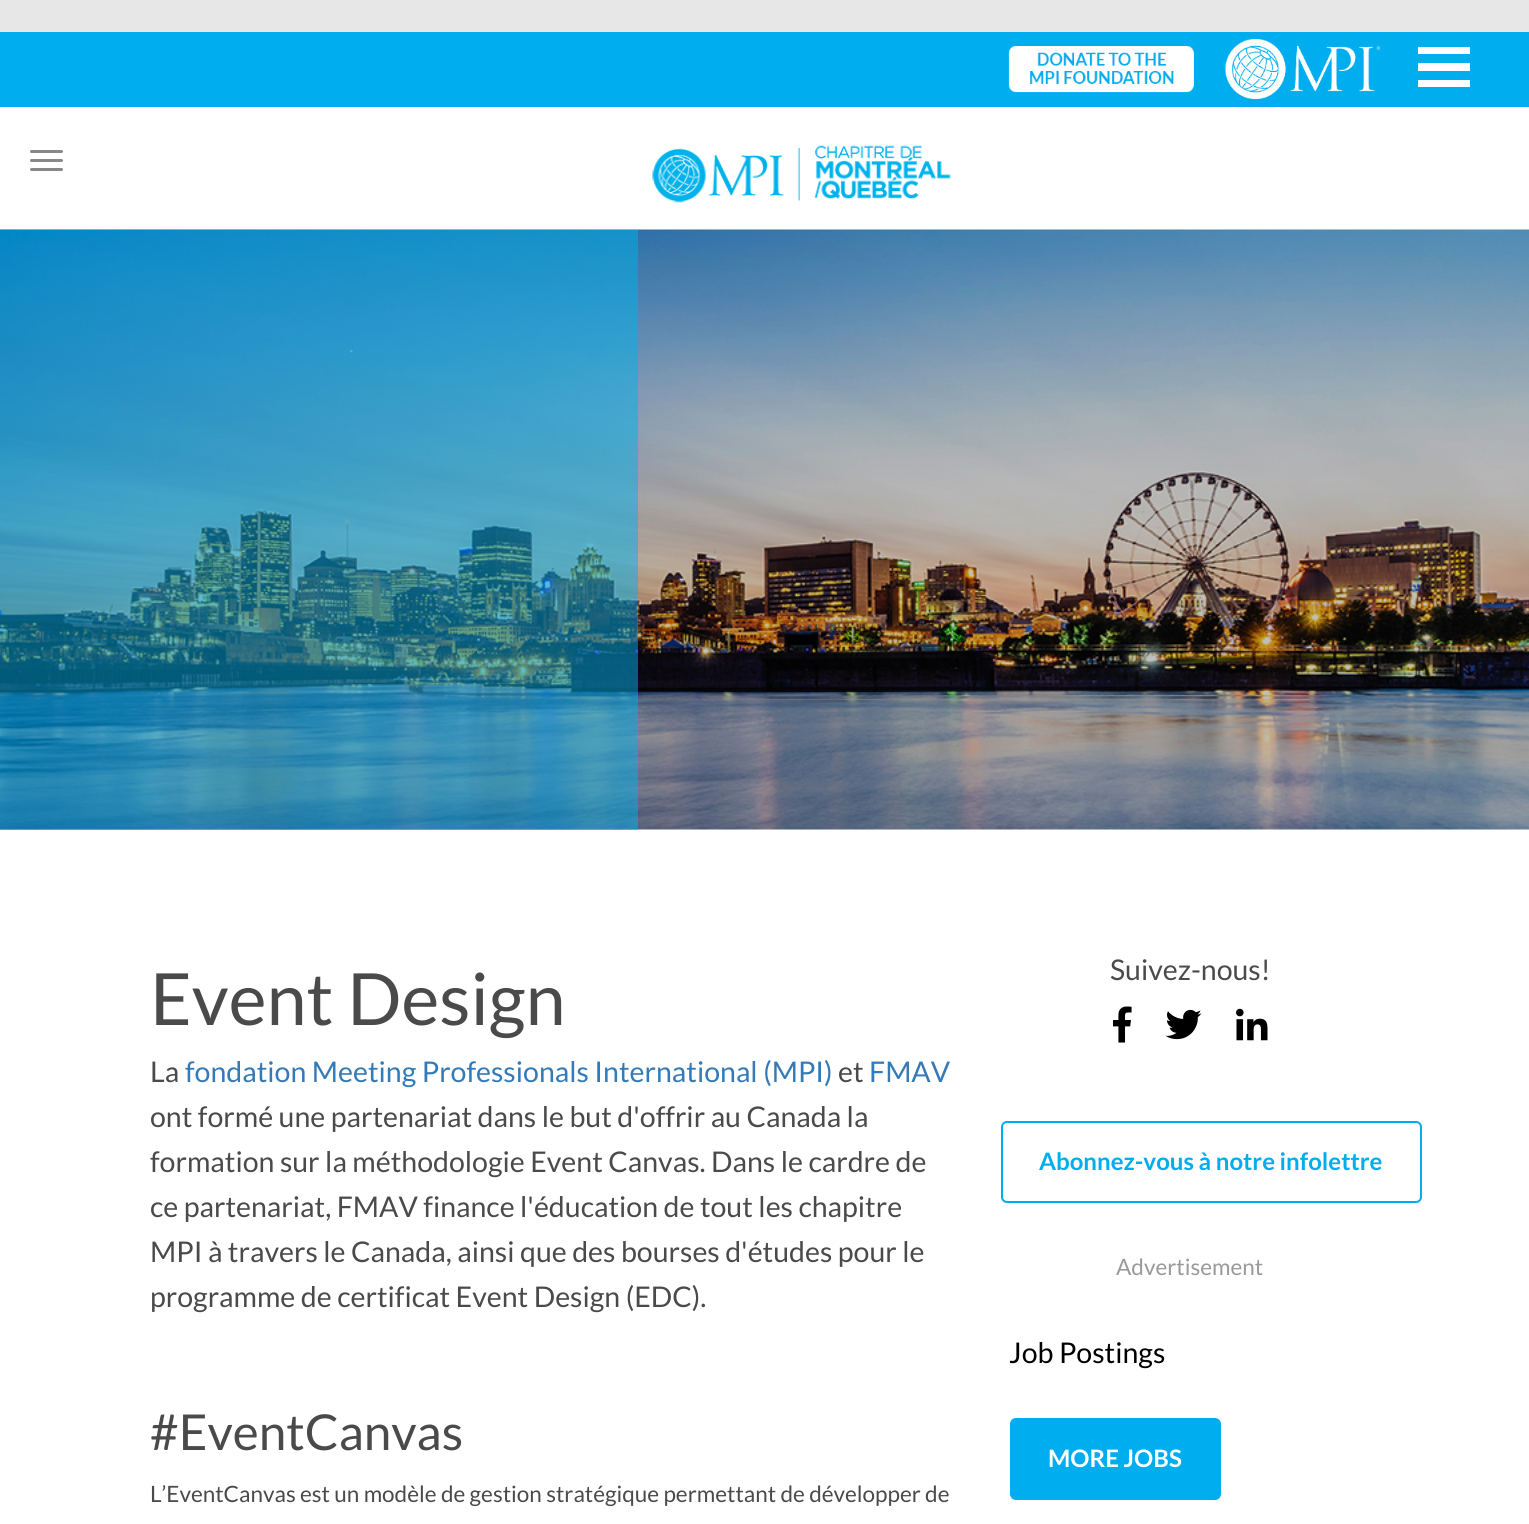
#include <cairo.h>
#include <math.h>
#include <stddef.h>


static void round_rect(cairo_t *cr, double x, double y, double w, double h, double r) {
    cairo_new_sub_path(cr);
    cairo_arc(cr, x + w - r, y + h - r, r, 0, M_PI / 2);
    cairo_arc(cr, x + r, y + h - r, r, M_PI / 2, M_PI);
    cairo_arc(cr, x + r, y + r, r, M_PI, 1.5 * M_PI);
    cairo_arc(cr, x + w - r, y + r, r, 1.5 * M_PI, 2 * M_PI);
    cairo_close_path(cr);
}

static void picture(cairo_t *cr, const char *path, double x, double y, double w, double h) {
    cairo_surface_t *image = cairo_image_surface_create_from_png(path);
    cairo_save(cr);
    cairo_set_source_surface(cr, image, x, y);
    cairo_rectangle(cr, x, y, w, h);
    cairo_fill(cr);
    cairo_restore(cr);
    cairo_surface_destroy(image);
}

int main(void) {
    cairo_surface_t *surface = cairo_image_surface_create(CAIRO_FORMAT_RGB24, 1529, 1524);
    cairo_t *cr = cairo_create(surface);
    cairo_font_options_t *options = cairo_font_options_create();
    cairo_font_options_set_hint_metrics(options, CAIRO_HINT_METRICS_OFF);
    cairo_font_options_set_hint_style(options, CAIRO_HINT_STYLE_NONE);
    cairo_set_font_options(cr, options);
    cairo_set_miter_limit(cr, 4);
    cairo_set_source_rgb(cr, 1, 1, 1);
    cairo_paint(cr);
    cairo_set_source_rgb(cr, 0.906, 0.906, 0.906);
    cairo_rectangle(cr, 0, 0, 1529, 32);
    cairo_fill(cr);
    cairo_set_source_rgb(cr, 0, 0.682, 0.937);
    cairo_rectangle(cr, 0, 32, 1529, 75);
    cairo_fill(cr);
    picture(cr, "img1.png", 1008, 46, 186, 47);
    picture(cr, "img2.png", 1225, 39, 155, 60);
    cairo_set_source_rgb(cr, 1, 1, 1);
    cairo_rectangle(cr, 1418, 47, 52, 7);
    cairo_fill(cr);
    cairo_rectangle(cr, 1418, 63, 52, 8);
    cairo_fill(cr);
    cairo_rectangle(cr, 1418, 80, 52, 7);
    cairo_fill(cr);
    cairo_set_source_rgb(cr, 0.533, 0.533, 0.533);
    round_rect(cr, 30, 150, 33, 3, 1.5);
    cairo_fill(cr);
    round_rect(cr, 30, 159, 33, 3, 1.5);
    cairo_fill(cr);
    round_rect(cr, 30, 168, 33, 3, 1.5);
    cairo_fill(cr);
    picture(cr, "img3.png", 652, 145, 299, 58);
    picture(cr, "img4.png", 0, 229, 1529, 601);
    cairo_set_source_rgba(cr, 0, 0.698, 0.922, 0.5);
    cairo_rectangle(cr, 0, 230, 638, 600);
    cairo_fill(cr);
    cairo_select_font_face(cr, "Lato", CAIRO_FONT_SLANT_NORMAL, CAIRO_FONT_WEIGHT_NORMAL);
    cairo_set_font_size(cr, 72);
    cairo_set_source_rgb(cr, 0.29, 0.29, 0.29);
    cairo_move_to(cr, 150, 1025);
    cairo_show_text(cr, "Event Design");
    cairo_set_font_size(cr, 28.5);
    cairo_move_to(cr, 150, 1082);
    cairo_show_text(cr, "La");
    cairo_set_source_rgb(cr, 0.2, 0.478, 0.718);
    cairo_move_to(cr, 185, 1082);
    cairo_show_text(cr, "fondation Meeting Professionals International (MPI)");
    cairo_set_source_rgb(cr, 0.29, 0.29, 0.29);
    cairo_move_to(cr, 838, 1082);
    cairo_show_text(cr, "et");
    cairo_set_source_rgb(cr, 0.2, 0.478, 0.718);
    cairo_move_to(cr, 869, 1082);
    cairo_show_text(cr, "FMAV");
    cairo_set_source_rgb(cr, 0.29, 0.29, 0.29);
    cairo_move_to(cr, 150, 1127);
    cairo_show_text(cr, "ont formé une partenariat dans le but d'offrir au Canada la");
    cairo_move_to(cr, 150, 1172);
    cairo_show_text(cr, "formation sur la méthodologie Event Canvas. Dans le cardre de");
    cairo_move_to(cr, 150, 1217);
    cairo_show_text(cr, "ce partenariat, FMAV finance l'éducation de tout les chapitre");
    cairo_move_to(cr, 150, 1262);
    cairo_show_text(cr, "MPI à travers le Canada, ainsi que des bourses d'études pour le");
    cairo_move_to(cr, 150, 1307);
    cairo_show_text(cr, "programme de certificat Event Design (EDC).");
    cairo_set_font_size(cr, 49.5);
    cairo_move_to(cr, 150, 1450);
    cairo_show_text(cr, "#EventCanvas");
    cairo_set_font_size(cr, 22.5);
    cairo_move_to(cr, 150, 1502);
    cairo_show_text(cr, "L’EventCanvas est un modèle de gestion stratégique permettant de développer de");
    cairo_set_font_size(cr, 28.5);
    cairo_move_to(cr, 1110, 980);
    cairo_show_text(cr, "Suivez-nous!");
    picture(cr, "img5.png", 1113, 1006, 19, 37);
    picture(cr, "img6.png", 1165, 1009, 37, 31);
    picture(cr, "img7.png", 1236, 1008, 32, 33);
    round_rect(cr, 1002, 1122, 419, 80, 5);
    cairo_set_source_rgb(cr, 0, 0.678, 0.933);
    cairo_stroke(cr);
    cairo_select_font_face(cr, "Lato", CAIRO_FONT_SLANT_NORMAL, CAIRO_FONT_WEIGHT_BOLD);
    cairo_set_font_size(cr, 24);
    cairo_move_to(cr, 1039, 1170);
    cairo_show_text(cr, "Abonnez-vous à notre infolettre");
    cairo_select_font_face(cr, "Lato", CAIRO_FONT_SLANT_NORMAL, CAIRO_FONT_WEIGHT_NORMAL);
    cairo_set_font_size(cr, 22.5);
    cairo_set_source_rgb(cr, 0.6, 0.6, 0.6);
    cairo_move_to(cr, 1116, 1275);
    cairo_show_text(cr, "Advertisement");
    cairo_set_font_size(cr, 28.5);
    cairo_set_source_rgb(cr, 0, 0, 0);
    cairo_move_to(cr, 1009, 1363);
    cairo_show_text(cr, "Job Postings");
    cairo_set_source_rgb(cr, 0, 0.678, 0.933);
    round_rect(cr, 1011, 1419, 209, 80, 5);
    cairo_fill_preserve(cr);
    cairo_stroke(cr);
    cairo_select_font_face(cr, "Lato", CAIRO_FONT_SLANT_NORMAL, CAIRO_FONT_WEIGHT_BOLD);
    cairo_set_font_size(cr, 24);
    cairo_set_source_rgb(cr, 1, 1, 1);
    cairo_move_to(cr, 1048, 1467);
    cairo_show_text(cr, "MORE JOBS");
    cairo_surface_write_to_png(surface, "page.png");
    cairo_font_options_destroy(options);
    cairo_destroy(cr);
    cairo_surface_destroy(surface);
    return 0;
}
